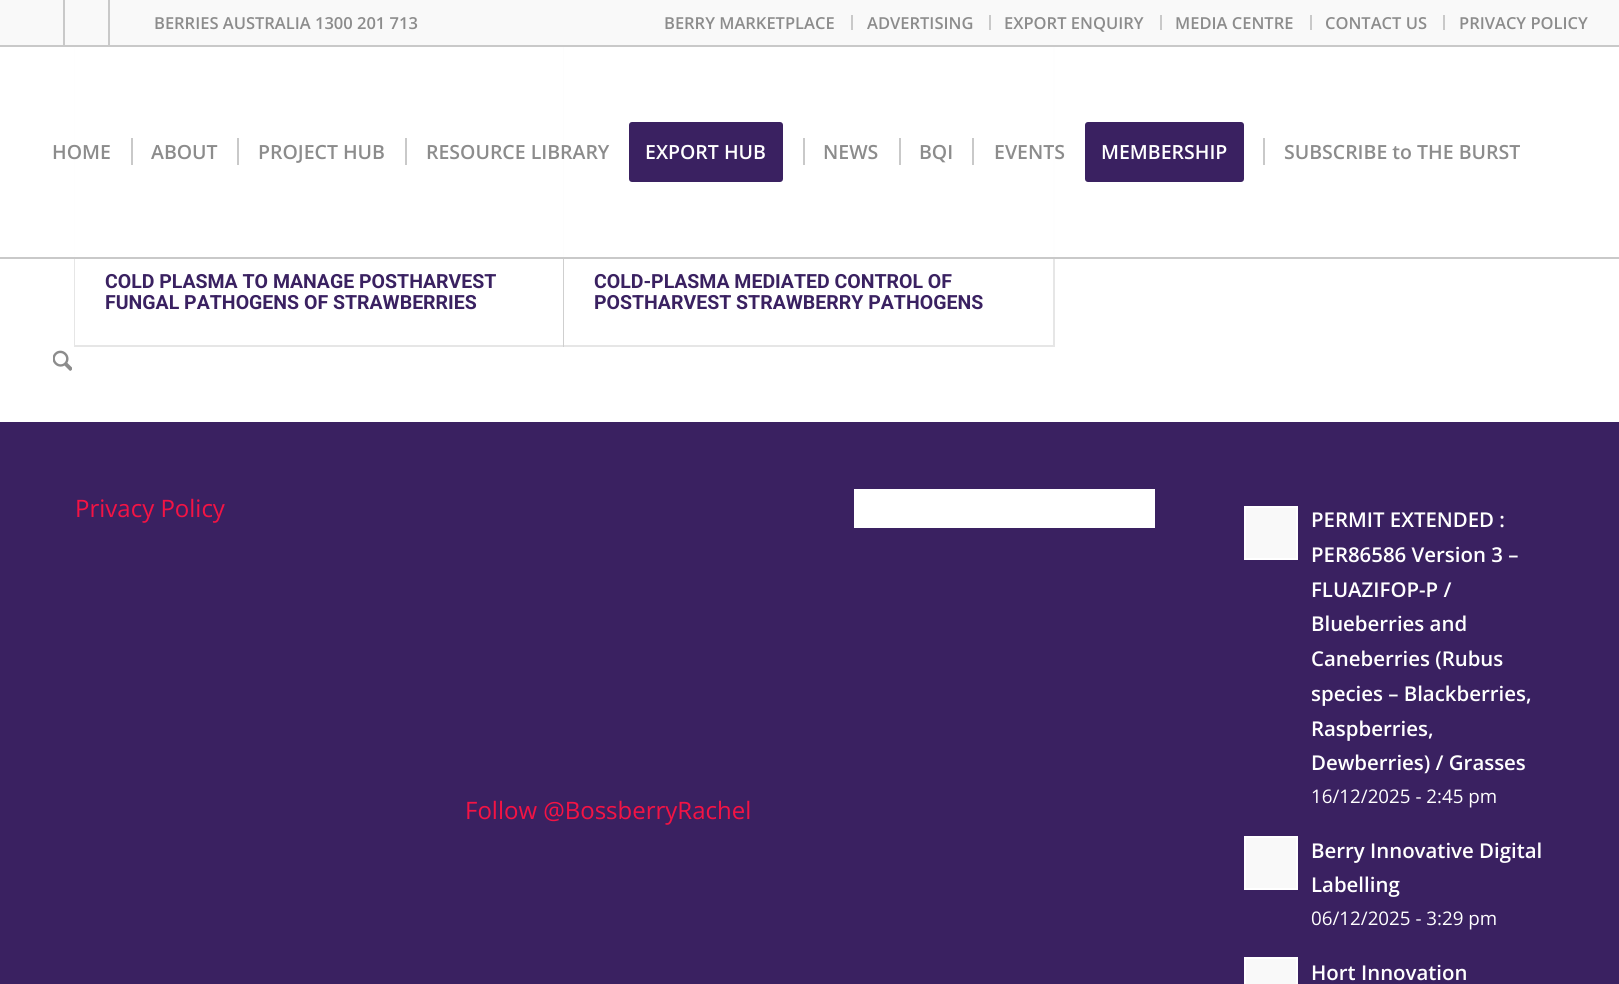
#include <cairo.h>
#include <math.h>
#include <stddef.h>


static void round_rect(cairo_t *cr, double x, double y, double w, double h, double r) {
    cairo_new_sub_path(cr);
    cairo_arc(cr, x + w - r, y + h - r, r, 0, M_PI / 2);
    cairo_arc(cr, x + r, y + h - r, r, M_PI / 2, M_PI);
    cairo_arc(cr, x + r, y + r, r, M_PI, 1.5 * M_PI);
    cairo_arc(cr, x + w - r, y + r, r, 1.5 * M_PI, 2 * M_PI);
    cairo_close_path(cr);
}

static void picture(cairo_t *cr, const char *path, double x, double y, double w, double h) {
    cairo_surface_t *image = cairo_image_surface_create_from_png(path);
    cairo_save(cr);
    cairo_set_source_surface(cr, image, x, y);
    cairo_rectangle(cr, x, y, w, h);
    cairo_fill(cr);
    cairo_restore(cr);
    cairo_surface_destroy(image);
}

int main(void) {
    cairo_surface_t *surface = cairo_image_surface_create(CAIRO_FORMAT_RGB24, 1619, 984);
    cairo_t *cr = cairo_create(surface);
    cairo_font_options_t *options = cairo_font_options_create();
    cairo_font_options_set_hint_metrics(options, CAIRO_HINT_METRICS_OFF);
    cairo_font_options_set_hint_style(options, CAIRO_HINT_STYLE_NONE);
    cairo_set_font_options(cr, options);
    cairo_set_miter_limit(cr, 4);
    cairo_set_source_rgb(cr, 1, 1, 1);
    cairo_paint(cr);
    cairo_rectangle(cr, 75, -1, 488, 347);
    cairo_set_source_rgb(cr, 0.902, 0.902, 0.902);
    cairo_stroke(cr);
    cairo_rectangle(cr, 564, -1, 490, 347);
    cairo_set_source_rgba(cr, 0, 0, 0, 0.1);
    cairo_stroke(cr);
    cairo_set_source_rgb(cr, 0.973, 0.973, 0.973);
    cairo_rectangle(cr, 0, 0, 1619, 45);
    cairo_fill(cr);
    cairo_set_source_rgb(cr, 0.788, 0.788, 0.788);
    cairo_rectangle(cr, 0, 45, 1619, 2);
    cairo_fill(cr);
    cairo_rectangle(cr, 63, 0, 2, 45);
    cairo_fill(cr);
    cairo_rectangle(cr, 108, 0, 2, 45);
    cairo_fill(cr);
    cairo_select_font_face(cr, "Open Sans SemiBold", CAIRO_FONT_SLANT_NORMAL, CAIRO_FONT_WEIGHT_NORMAL);
    cairo_set_font_size(cr, 16.5);
    cairo_set_source_rgb(cr, 0.549, 0.549, 0.549);
    cairo_move_to(cr, 154, 29);
    cairo_show_text(cr, "BERRIES AUSTRALIA 1300 201 713");
    cairo_set_source_rgb(cr, 0.788, 0.788, 0.788);
    cairo_rectangle(cr, 851, 15, 2, 15);
    cairo_fill(cr);
    cairo_set_source_rgb(cr, 0.549, 0.549, 0.549);
    cairo_move_to(cr, 664, 29);
    cairo_show_text(cr, "BERRY MARKETPLACE");
    cairo_set_source_rgb(cr, 0.788, 0.788, 0.788);
    cairo_rectangle(cr, 989, 15, 2, 15);
    cairo_fill(cr);
    cairo_set_source_rgb(cr, 0.549, 0.549, 0.549);
    cairo_move_to(cr, 867, 29);
    cairo_show_text(cr, "ADVERTISING");
    cairo_set_source_rgb(cr, 0.788, 0.788, 0.788);
    cairo_rectangle(cr, 1160, 15, 2, 15);
    cairo_fill(cr);
    cairo_set_source_rgb(cr, 0.549, 0.549, 0.549);
    cairo_move_to(cr, 1004, 29);
    cairo_show_text(cr, "EXPORT ENQUIRY");
    cairo_set_source_rgb(cr, 0.788, 0.788, 0.788);
    cairo_rectangle(cr, 1310, 15, 2, 15);
    cairo_fill(cr);
    cairo_set_source_rgb(cr, 0.549, 0.549, 0.549);
    cairo_move_to(cr, 1175, 29);
    cairo_show_text(cr, "MEDIA CENTRE");
    cairo_set_source_rgb(cr, 0.788, 0.788, 0.788);
    cairo_rectangle(cr, 1443, 15, 2, 15);
    cairo_fill(cr);
    cairo_set_source_rgb(cr, 0.549, 0.549, 0.549);
    cairo_move_to(cr, 1325, 29);
    cairo_show_text(cr, "CONTACT US");
    cairo_move_to(cr, 1459, 29);
    cairo_show_text(cr, "PRIVACY POLICY");
    cairo_set_source_rgb(cr, 1, 1, 1);
    cairo_rectangle(cr, 75, 47, 488, 298);
    cairo_fill(cr);
    cairo_rectangle(cr, 564, 47, 1, 298);
    cairo_fill(cr);
    cairo_set_source_rgba(cr, 1, 1, 1, 0.95);
    cairo_rectangle(cr, 74, 47, 981, 210);
    cairo_fill(cr);
    cairo_set_source_rgb(cr, 0.788, 0.788, 0.788);
    cairo_rectangle(cr, 0, 257, 1619, 2);
    cairo_fill(cr);
    cairo_set_font_size(cr, 19.5);
    cairo_set_source_rgb(cr, 0.549, 0.549, 0.549);
    cairo_move_to(cr, 52, 159);
    cairo_show_text(cr, "HOME");
    cairo_move_to(cr, 151, 159);
    cairo_show_text(cr, "ABOUT");
    cairo_set_source_rgb(cr, 0.788, 0.788, 0.788);
    cairo_rectangle(cr, 131, 138, 2, 27);
    cairo_fill(cr);
    cairo_set_source_rgb(cr, 0.549, 0.549, 0.549);
    cairo_move_to(cr, 258, 159);
    cairo_show_text(cr, "PROJECT HUB");
    cairo_set_source_rgb(cr, 0.788, 0.788, 0.788);
    cairo_rectangle(cr, 237, 138, 2, 27);
    cairo_fill(cr);
    cairo_set_source_rgb(cr, 0.549, 0.549, 0.549);
    cairo_move_to(cr, 426, 159);
    cairo_show_text(cr, "RESOURCE LIBRARY");
    cairo_set_source_rgb(cr, 0.788, 0.788, 0.788);
    cairo_rectangle(cr, 405, 138, 2, 27);
    cairo_fill(cr);
    cairo_set_source_rgb(cr, 0.227, 0.129, 0.38);
    round_rect(cr, 630.5, 123.5, 151, 57, 1.5);
    cairo_fill_preserve(cr);
    cairo_set_line_width(cr, 3);
    cairo_stroke(cr);
    cairo_set_source_rgb(cr, 1, 1, 1);
    cairo_move_to(cr, 645, 159);
    cairo_show_text(cr, "EXPORT HUB");
    cairo_set_source_rgb(cr, 0.549, 0.549, 0.549);
    cairo_move_to(cr, 823, 159);
    cairo_show_text(cr, "NEWS");
    cairo_set_source_rgb(cr, 0.788, 0.788, 0.788);
    cairo_rectangle(cr, 803, 138, 2, 27);
    cairo_fill(cr);
    cairo_set_source_rgb(cr, 0.549, 0.549, 0.549);
    cairo_move_to(cr, 919, 159);
    cairo_show_text(cr, "BQI");
    cairo_set_source_rgb(cr, 0.788, 0.788, 0.788);
    cairo_rectangle(cr, 899, 138, 2, 27);
    cairo_fill(cr);
    cairo_set_source_rgb(cr, 0.549, 0.549, 0.549);
    cairo_move_to(cr, 994, 159);
    cairo_show_text(cr, "EVENTS");
    cairo_set_source_rgb(cr, 0.788, 0.788, 0.788);
    cairo_rectangle(cr, 972, 138, 2, 27);
    cairo_fill(cr);
    cairo_set_source_rgb(cr, 0.227, 0.129, 0.38);
    round_rect(cr, 1086.5, 123.5, 156, 57, 1.5);
    cairo_fill_preserve(cr);
    cairo_stroke(cr);
    cairo_set_source_rgb(cr, 1, 1, 1);
    cairo_move_to(cr, 1101, 159);
    cairo_show_text(cr, "MEMBERSHIP");
    cairo_set_source_rgb(cr, 0.549, 0.549, 0.549);
    cairo_move_to(cr, 1284, 159);
    cairo_show_text(cr, "SUBSCRIBE to THE BURST");
    cairo_set_source_rgb(cr, 0.788, 0.788, 0.788);
    cairo_rectangle(cr, 1263, 138, 2, 27);
    cairo_fill(cr);
    picture(cr, "img1.png", 53, 350, 19, 21);
    cairo_select_font_face(cr, "Roboto", CAIRO_FONT_SLANT_NORMAL, CAIRO_FONT_WEIGHT_BOLD);
    cairo_set_source_rgb(cr, 0.227, 0.129, 0.38);
    cairo_move_to(cr, 105, 288);
    cairo_show_text(cr, "COLD PLASMA TO MANAGE POSTHARVEST");
    cairo_move_to(cr, 105, 309);
    cairo_show_text(cr, "FUNGAL PATHOGENS OF STRAWBERRIES");
    cairo_move_to(cr, 594, 288);
    cairo_show_text(cr, "COLD-PLASMA MEDIATED CONTROL OF");
    cairo_move_to(cr, 594, 309);
    cairo_show_text(cr, "POSTHARVEST STRAWBERRY PATHOGENS");
    cairo_rectangle(cr, 0, 422, 1619, 562);
    cairo_fill(cr);
    cairo_select_font_face(cr, "Open Sans", CAIRO_FONT_SLANT_NORMAL, CAIRO_FONT_WEIGHT_NORMAL);
    cairo_set_font_size(cr, 24);
    cairo_set_source_rgb(cr, 0.957, 0.075, 0.267);
    cairo_move_to(cr, 75, 517);
    cairo_show_text(cr, "Privacy Policy");
    cairo_move_to(cr, 465, 819);
    cairo_show_text(cr, "Follow @BossberryRachel");
    cairo_set_source_rgb(cr, 1, 1, 1);
    cairo_rectangle(cr, 854, 489, 301, 39);
    cairo_fill(cr);
    cairo_set_source_rgb(cr, 0.973, 0.973, 0.973);
    cairo_rectangle(cr, 1245, 507, 52, 52);
    cairo_fill_preserve(cr);
    cairo_set_source_rgb(cr, 1, 1, 1);
    cairo_set_line_width(cr, 2);
    cairo_stroke(cr);
    cairo_select_font_face(cr, "Open Sans SemiBold", CAIRO_FONT_SLANT_NORMAL, CAIRO_FONT_WEIGHT_NORMAL);
    cairo_set_font_size(cr, 20.4);
    cairo_move_to(cr, 1311, 527);
    cairo_show_text(cr, "PERMIT EXTENDED :");
    cairo_move_to(cr, 1311, 562);
    cairo_show_text(cr, "PER86586 Version 3 –");
    cairo_move_to(cr, 1311, 597);
    cairo_show_text(cr, "FLUAZIFOP-P /");
    cairo_move_to(cr, 1311, 631);
    cairo_show_text(cr, "Blueberries and");
    cairo_move_to(cr, 1311, 666);
    cairo_show_text(cr, "Caneberries (Rubus");
    cairo_move_to(cr, 1311, 701);
    cairo_show_text(cr, "species – Blackberries,");
    cairo_move_to(cr, 1311, 736);
    cairo_show_text(cr, "Raspberries,");
    cairo_move_to(cr, 1311, 770);
    cairo_show_text(cr, "Dewberries) / Grasses");
    cairo_select_font_face(cr, "Open Sans", CAIRO_FONT_SLANT_NORMAL, CAIRO_FONT_WEIGHT_NORMAL);
    cairo_set_font_size(cr, 18.75);
    cairo_move_to(cr, 1311, 803);
    cairo_show_text(cr, "16/12/2025 - 2:45 pm");
    cairo_set_source_rgb(cr, 0.973, 0.973, 0.973);
    cairo_rectangle(cr, 1245, 837, 52, 52);
    cairo_fill_preserve(cr);
    cairo_set_source_rgb(cr, 1, 1, 1);
    cairo_stroke(cr);
    cairo_select_font_face(cr, "Open Sans SemiBold", CAIRO_FONT_SLANT_NORMAL, CAIRO_FONT_WEIGHT_NORMAL);
    cairo_set_font_size(cr, 20.4);
    cairo_move_to(cr, 1311, 858);
    cairo_show_text(cr, "Berry Innovative Digital");
    cairo_move_to(cr, 1311, 892);
    cairo_show_text(cr, "Labelling");
    cairo_select_font_face(cr, "Open Sans", CAIRO_FONT_SLANT_NORMAL, CAIRO_FONT_WEIGHT_NORMAL);
    cairo_set_font_size(cr, 18.75);
    cairo_move_to(cr, 1311, 925);
    cairo_show_text(cr, "06/12/2025 - 3:29 pm");
    cairo_set_source_rgb(cr, 0.973, 0.973, 0.973);
    cairo_rectangle(cr, 1245, 958, 52, 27);
    cairo_fill_preserve(cr);
    cairo_set_source_rgb(cr, 1, 1, 1);
    cairo_stroke(cr);
    cairo_select_font_face(cr, "Open Sans SemiBold", CAIRO_FONT_SLANT_NORMAL, CAIRO_FONT_WEIGHT_NORMAL);
    cairo_set_font_size(cr, 20.4);
    cairo_move_to(cr, 1311, 980);
    cairo_show_text(cr, "Hort Innovation");
    cairo_surface_write_to_png(surface, "page.png");
    cairo_font_options_destroy(options);
    cairo_destroy(cr);
    cairo_surface_destroy(surface);
    return 0;
}
